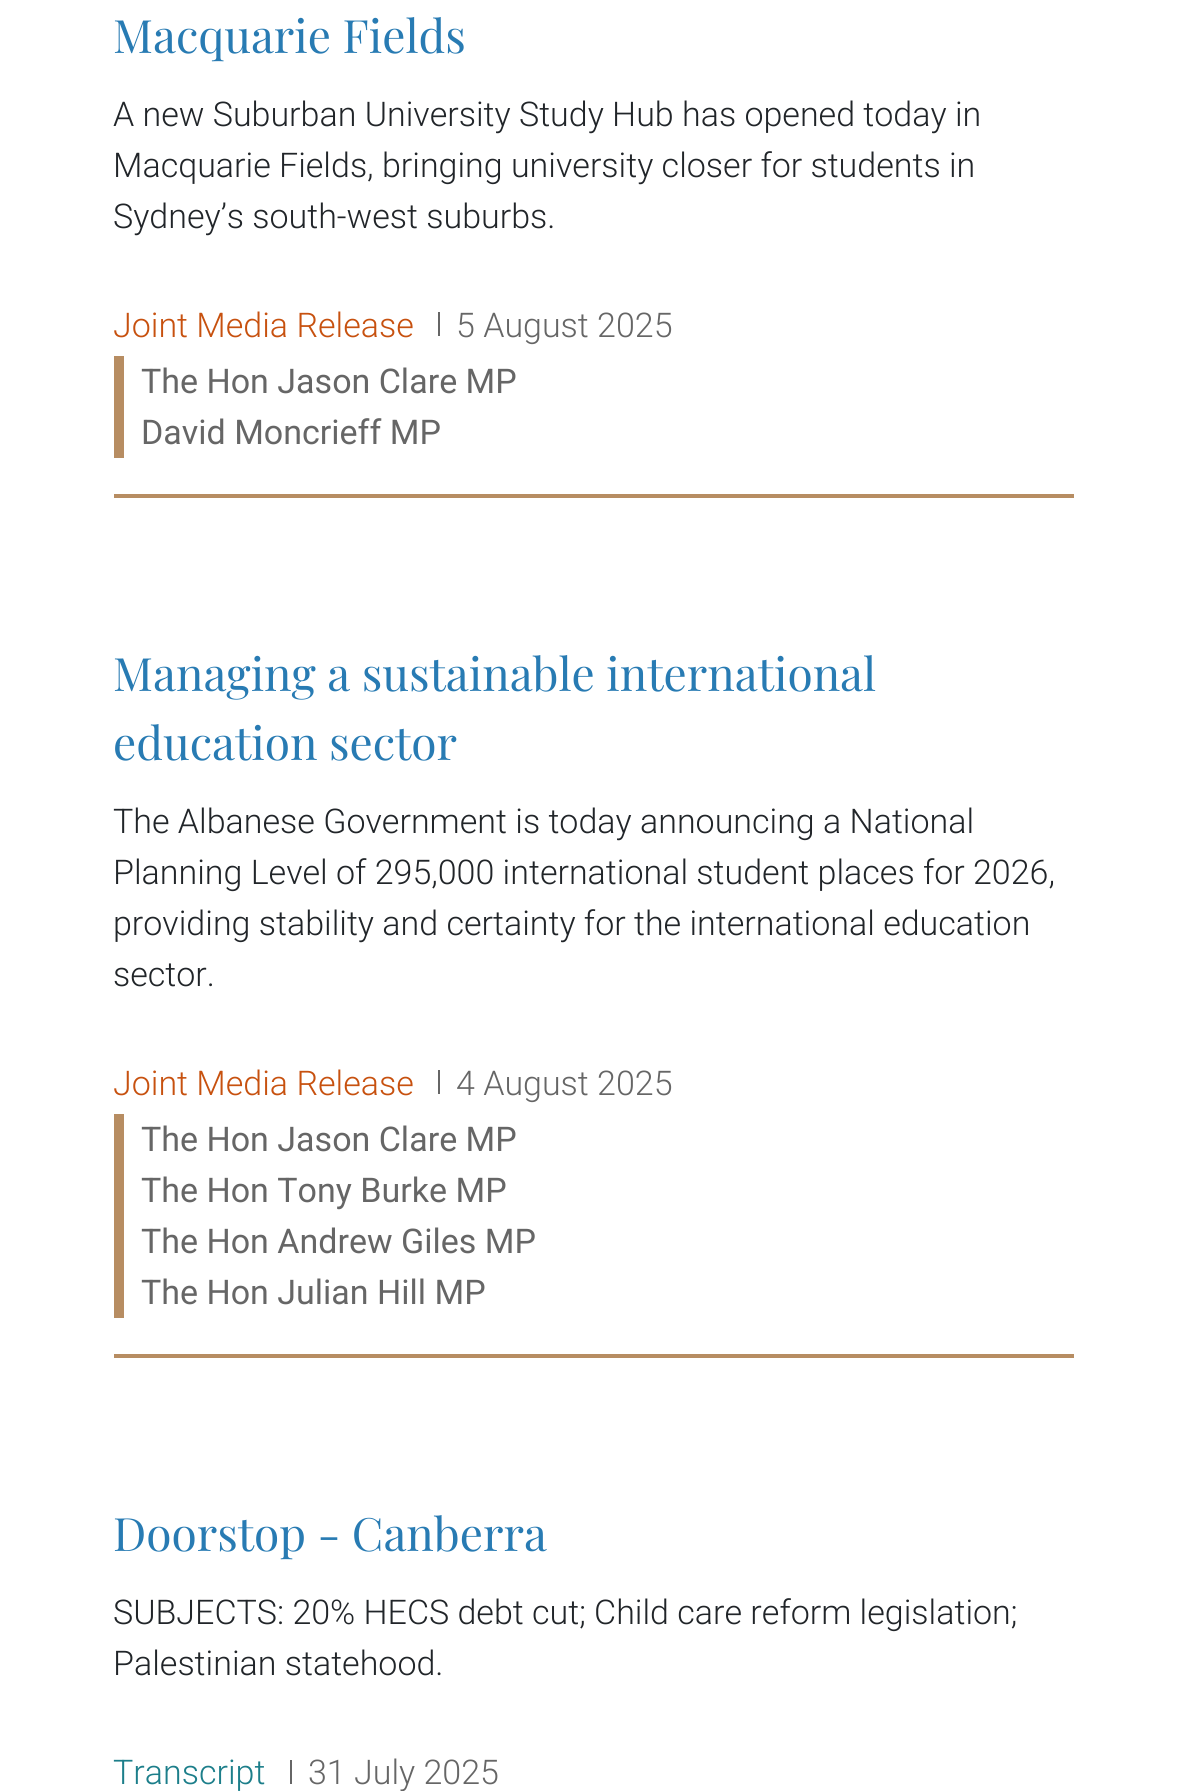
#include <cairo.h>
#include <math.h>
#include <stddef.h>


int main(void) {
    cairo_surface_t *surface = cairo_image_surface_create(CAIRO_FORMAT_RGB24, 1185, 1791);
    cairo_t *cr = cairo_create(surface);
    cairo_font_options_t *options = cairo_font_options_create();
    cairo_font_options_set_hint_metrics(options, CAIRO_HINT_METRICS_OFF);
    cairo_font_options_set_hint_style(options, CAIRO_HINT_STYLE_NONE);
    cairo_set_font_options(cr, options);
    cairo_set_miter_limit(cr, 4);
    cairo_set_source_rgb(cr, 1, 1, 1);
    cairo_paint(cr);
    cairo_select_font_face(cr, "Playfair Display", CAIRO_FONT_SLANT_NORMAL, CAIRO_FONT_WEIGHT_NORMAL);
    cairo_set_font_size(cr, 46);
    cairo_set_source_rgb(cr, 0.157, 0.482, 0.702);
    cairo_move_to(cr, 113, 53);
    cairo_show_text(cr, "Macquarie Fields");
    cairo_select_font_face(cr, "Roboto Light", CAIRO_FONT_SLANT_NORMAL, CAIRO_FONT_WEIGHT_NORMAL);
    cairo_set_font_size(cr, 34);
    cairo_set_source_rgb(cr, 0.129, 0.145, 0.161);
    cairo_move_to(cr, 113, 126);
    cairo_show_text(cr, "A new Suburban University Study Hub has opened today in");
    cairo_move_to(cr, 113, 177);
    cairo_show_text(cr, "Macquarie Fields, bringing university closer for students in");
    cairo_move_to(cr, 113, 228);
    cairo_show_text(cr, "Sydney’s south-west suburbs.");
    cairo_set_source_rgb(cr, 0.718, 0.553, 0.384);
    cairo_rectangle(cr, 114, 494, 960, 4);
    cairo_fill(cr);
    cairo_set_source_rgb(cr, 0.78, 0.318, 0.059);
    cairo_move_to(cr, 113, 337);
    cairo_show_text(cr, "Joint Media Release");
    cairo_set_source_rgb(cr, 0.4, 0.4, 0.4);
    cairo_rectangle(cr, 438, 312, 2, 24);
    cairo_fill(cr);
    cairo_move_to(cr, 456, 337);
    cairo_show_text(cr, "5 August 2025");
    cairo_set_source_rgb(cr, 0.718, 0.553, 0.384);
    cairo_rectangle(cr, 114, 356, 10, 102);
    cairo_fill(cr);
    cairo_select_font_face(cr, "Roboto", CAIRO_FONT_SLANT_NORMAL, CAIRO_FONT_WEIGHT_NORMAL);
    cairo_set_source_rgb(cr, 0.4, 0.4, 0.4);
    cairo_move_to(cr, 141, 393);
    cairo_show_text(cr, "The Hon Jason Clare MP");
    cairo_move_to(cr, 141, 444);
    cairo_show_text(cr, "David Moncrieff MP");
    cairo_select_font_face(cr, "Playfair Display", CAIRO_FONT_SLANT_NORMAL, CAIRO_FONT_WEIGHT_NORMAL);
    cairo_set_font_size(cr, 46);
    cairo_set_source_rgb(cr, 0.157, 0.482, 0.702);
    cairo_move_to(cr, 113, 691);
    cairo_show_text(cr, "Managing a sustainable international");
    cairo_move_to(cr, 113, 760);
    cairo_show_text(cr, "education sector");
    cairo_select_font_face(cr, "Roboto Light", CAIRO_FONT_SLANT_NORMAL, CAIRO_FONT_WEIGHT_NORMAL);
    cairo_set_font_size(cr, 34);
    cairo_set_source_rgb(cr, 0.129, 0.145, 0.161);
    cairo_move_to(cr, 113, 833);
    cairo_show_text(cr, "The Albanese Government is today announcing a National");
    cairo_move_to(cr, 113, 884);
    cairo_show_text(cr, "Planning Level of 295,000 international student places for 2026,");
    cairo_move_to(cr, 113, 935);
    cairo_show_text(cr, "providing stability and certainty for the international education");
    cairo_move_to(cr, 113, 986);
    cairo_show_text(cr, "sector.");
    cairo_set_source_rgb(cr, 0.718, 0.553, 0.384);
    cairo_rectangle(cr, 114, 1354, 960, 4);
    cairo_fill(cr);
    cairo_set_source_rgb(cr, 0.78, 0.318, 0.059);
    cairo_move_to(cr, 113, 1095);
    cairo_show_text(cr, "Joint Media Release");
    cairo_set_source_rgb(cr, 0.4, 0.4, 0.4);
    cairo_rectangle(cr, 438, 1070, 2, 24);
    cairo_fill(cr);
    cairo_move_to(cr, 456, 1095);
    cairo_show_text(cr, "4 August 2025");
    cairo_set_source_rgb(cr, 0.718, 0.553, 0.384);
    cairo_rectangle(cr, 114, 1114, 10, 204);
    cairo_fill(cr);
    cairo_select_font_face(cr, "Roboto", CAIRO_FONT_SLANT_NORMAL, CAIRO_FONT_WEIGHT_NORMAL);
    cairo_set_source_rgb(cr, 0.4, 0.4, 0.4);
    cairo_move_to(cr, 141, 1151);
    cairo_show_text(cr, "The Hon Jason Clare MP");
    cairo_move_to(cr, 141, 1202);
    cairo_show_text(cr, "The Hon Tony Burke MP");
    cairo_move_to(cr, 141, 1253);
    cairo_show_text(cr, "The Hon Andrew Giles MP");
    cairo_move_to(cr, 141, 1304);
    cairo_show_text(cr, "The Hon Julian Hill MP");
    cairo_select_font_face(cr, "Playfair Display", CAIRO_FONT_SLANT_NORMAL, CAIRO_FONT_WEIGHT_NORMAL);
    cairo_set_font_size(cr, 46);
    cairo_set_source_rgb(cr, 0.157, 0.482, 0.702);
    cairo_move_to(cr, 113, 1551);
    cairo_show_text(cr, "Doorstop - Canberra");
    cairo_select_font_face(cr, "Roboto Light", CAIRO_FONT_SLANT_NORMAL, CAIRO_FONT_WEIGHT_NORMAL);
    cairo_set_font_size(cr, 34);
    cairo_set_source_rgb(cr, 0.129, 0.145, 0.161);
    cairo_move_to(cr, 113, 1624);
    cairo_show_text(cr, "SUBJECTS: 20% HECS debt cut; Child care reform legislation;");
    cairo_move_to(cr, 113, 1675);
    cairo_show_text(cr, "Palestinian statehood.");
    cairo_set_source_rgb(cr, 0.11, 0.494, 0.541);
    cairo_move_to(cr, 113, 1784);
    cairo_show_text(cr, "Transcript");
    cairo_set_source_rgb(cr, 0.4, 0.4, 0.4);
    cairo_rectangle(cr, 290, 1760, 2, 24);
    cairo_fill(cr);
    cairo_move_to(cr, 308, 1784);
    cairo_show_text(cr, "31 July 2025");
    cairo_surface_write_to_png(surface, "page.png");
    cairo_font_options_destroy(options);
    cairo_destroy(cr);
    cairo_surface_destroy(surface);
    return 0;
}
